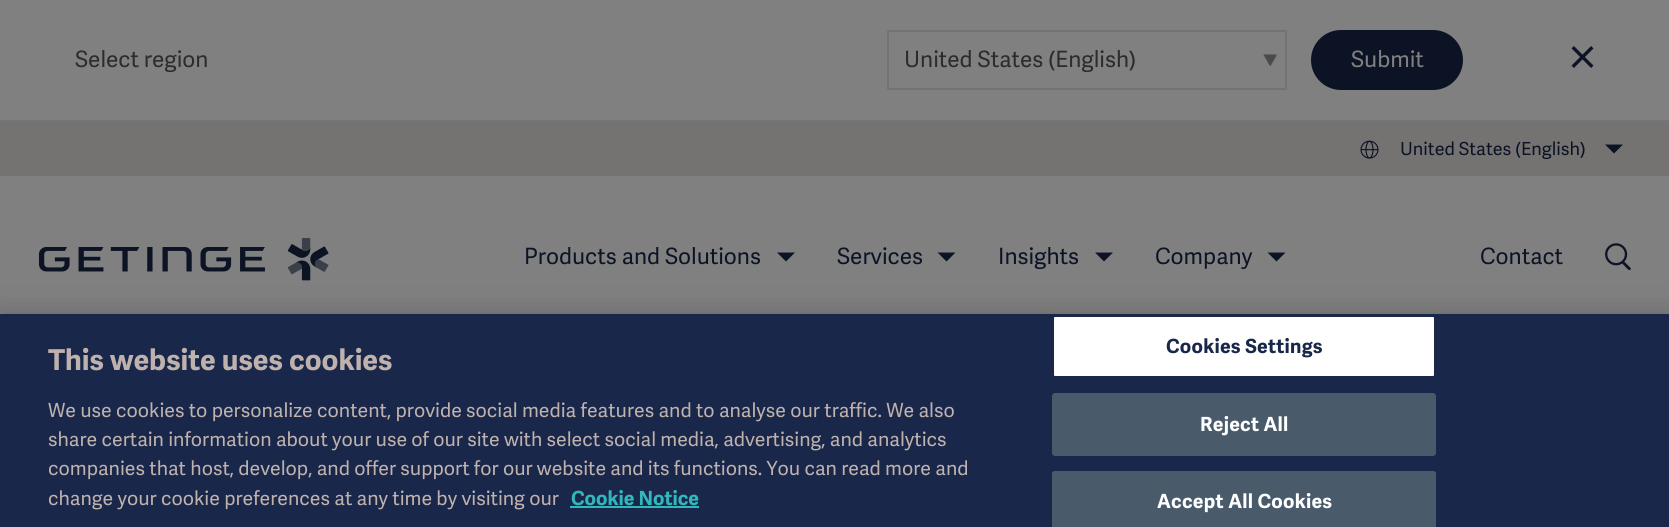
#include <cairo.h>
#include <math.h>
#include <stddef.h>


static void spaced_text(cairo_t *cr, double x, double y, const char *s, double letter, double word) {
    cairo_move_to(cr, x, y);
    while (*s) {
        char ch[5] = {0};
        int n = 0;
        do ch[n++] = *s++; while ((*s & 0xC0) == 0x80);
        cairo_show_text(cr, ch);
        cairo_rel_move_to(cr, letter + word * (*ch == ' '), 0);
    }
}

static void round_rect(cairo_t *cr, double x, double y, double w, double h, double r) {
    cairo_new_sub_path(cr);
    cairo_arc(cr, x + w - r, y + h - r, r, 0, M_PI / 2);
    cairo_arc(cr, x + r, y + h - r, r, M_PI / 2, M_PI);
    cairo_arc(cr, x + r, y + r, r, M_PI, 1.5 * M_PI);
    cairo_arc(cr, x + w - r, y + r, r, 1.5 * M_PI, 2 * M_PI);
    cairo_close_path(cr);
}

static void shadow(cairo_t *cr, double x, double y, double w, double h, double r, double blur, double alpha) {
    cairo_push_group_with_content(cr, CAIRO_CONTENT_ALPHA);
    cairo_set_operator(cr, CAIRO_OPERATOR_SOURCE);
    for (int i = 15; i >= -15 && fmin(w, h) + blur * i / 3 > 0; i -= 2) {
        double e = blur * i / 6;
        cairo_set_source_rgba(cr, 0, 0, 0, alpha * erfc((i - 1) / 8.5) / 2);
        round_rect(cr, x - e, y - e, w + 2 * e, h + 2 * e, fmax(0, fmin(r + e + blur * .6, fmin(w, h) / 2 + e)));
        cairo_fill(cr);
    }
    cairo_pattern_t *soft = cairo_pop_group(cr);
    cairo_mask(cr, soft);
    cairo_pattern_destroy(soft);
}

static void picture(cairo_t *cr, const char *path, double x, double y, double w, double h) {
    cairo_surface_t *image = cairo_image_surface_create_from_png(path);
    cairo_save(cr);
    cairo_set_source_surface(cr, image, x, y);
    cairo_rectangle(cr, x, y, w, h);
    cairo_fill(cr);
    cairo_restore(cr);
    cairo_surface_destroy(image);
}

int main(void) {
    cairo_surface_t *surface = cairo_image_surface_create(CAIRO_FORMAT_RGB24, 1669, 527);
    cairo_t *cr = cairo_create(surface);
    cairo_font_options_t *options = cairo_font_options_create();
    cairo_font_options_set_hint_metrics(options, CAIRO_HINT_METRICS_OFF);
    cairo_font_options_set_hint_style(options, CAIRO_HINT_STYLE_NONE);
    cairo_set_font_options(cr, options);
    cairo_set_miter_limit(cr, 4);
    cairo_set_source_rgb(cr, 0.502, 0.502, 0.502);
    cairo_paint(cr);
    cairo_set_source_rgb(cr, 0.459, 0.459, 0.459);
    cairo_rectangle(cr, 0, 120, 1669, 2);
    cairo_fill(cr);
    cairo_select_font_face(cr, "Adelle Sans", CAIRO_FONT_SLANT_NORMAL, CAIRO_FONT_WEIGHT_NORMAL);
    cairo_set_font_size(cr, 22.5);
    cairo_set_source_rgb(cr, 0.176, 0.173, 0.173);
    cairo_move_to(cr, 75, 67);
    cairo_show_text(cr, "Select region");
    cairo_rectangle(cr, 888, 31, 398, 58);
    cairo_set_source_rgb(cr, 0.459, 0.447, 0.447);
    cairo_stroke(cr);
    cairo_set_source_rgb(cr, 0.176, 0.173, 0.173);
    cairo_move_to(cr, 904, 67);
    cairo_show_text(cr, "United States (English)");
    picture(cr, "img1.png", 1263, 54, 14, 12);
    cairo_set_source_rgb(cr, 0.047, 0.078, 0.145);
    round_rect(cr, 1312.5, 31.5, 149, 57, 28.5);
    cairo_fill_preserve(cr);
    cairo_set_line_width(cr, 3);
    cairo_stroke(cr);
    cairo_set_source_rgb(cr, 0.502, 0.502, 0.502);
    cairo_move_to(cr, 1351, 67);
    cairo_show_text(cr, "Submit");
    picture(cr, "img2.png", 1571, 46, 23, 22);
    cairo_set_source_rgb(cr, 0.459, 0.447, 0.447);
    cairo_rectangle(cr, 0, 122, 1669, 54);
    cairo_fill(cr);
    picture(cr, "img3.png", 1360, 140, 19, 19);
    cairo_set_font_size(cr, 18);
    cairo_set_source_rgb(cr, 0.047, 0.078, 0.145);
    cairo_move_to(cr, 1400, 155);
    cairo_show_text(cr, "United States (English)");
    cairo_new_path(cr);
    cairo_move_to(cr, 1614, 144.5);
    cairo_line_to(cr, 1623, 144.5);
    cairo_line_to(cr, 1614, 153.5);
    cairo_line_to(cr, 1605, 144.5);
    cairo_close_path(cr);
    cairo_fill(cr);
    picture(cr, "img4.png", 38, 238, 291, 43);
    cairo_set_font_size(cr, 22.5);
    cairo_move_to(cr, 524, 264);
    cairo_show_text(cr, "Products and Solutions");
    cairo_new_path(cr);
    cairo_move_to(cr, 786, 252.5);
    cairo_line_to(cr, 795, 252.5);
    cairo_line_to(cr, 786, 261.5);
    cairo_line_to(cr, 777, 252.5);
    cairo_close_path(cr);
    cairo_fill(cr);
    cairo_move_to(cr, 837, 264);
    cairo_show_text(cr, "Services");
    cairo_new_path(cr);
    cairo_move_to(cr, 946.5, 252.5);
    cairo_line_to(cr, 955.5, 252.5);
    cairo_line_to(cr, 946.5, 261.5);
    cairo_line_to(cr, 937.5, 252.5);
    cairo_close_path(cr);
    cairo_fill(cr);
    cairo_move_to(cr, 998, 264);
    cairo_show_text(cr, "Insights");
    cairo_new_path(cr);
    cairo_move_to(cr, 1104, 252.5);
    cairo_line_to(cr, 1113, 252.5);
    cairo_line_to(cr, 1104, 261.5);
    cairo_line_to(cr, 1095, 252.5);
    cairo_close_path(cr);
    cairo_fill(cr);
    cairo_move_to(cr, 1155, 264);
    cairo_show_text(cr, "Company");
    cairo_new_path(cr);
    cairo_move_to(cr, 1276.5, 252.5);
    cairo_line_to(cr, 1285.5, 252.5);
    cairo_line_to(cr, 1276.5, 261.5);
    cairo_line_to(cr, 1267.5, 252.5);
    cairo_close_path(cr);
    cairo_fill(cr);
    cairo_move_to(cr, 1480, 264);
    cairo_show_text(cr, "Contact");
    picture(cr, "img5.png", 1605, 243, 26, 28);
    cairo_set_source_rgb(cr, 0, 0, 0);
    shadow(cr, 0, 314, 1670, 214, 0, 13.5, 0.2);
    cairo_set_source_rgb(cr, 0.094, 0.153, 0.29);
    cairo_rectangle(cr, 0, 314, 1669, 213);
    cairo_fill(cr);
    cairo_select_font_face(cr, "Adelle Sans", CAIRO_FONT_SLANT_NORMAL, CAIRO_FONT_WEIGHT_BOLD);
    cairo_set_font_size(cr, 28.75);
    cairo_set_source_rgb(cr, 0.749, 0.694, 0.675);
    cairo_move_to(cr, 48, 370);
    cairo_show_text(cr, "This website uses cookies");
    cairo_select_font_face(cr, "Adelle Sans", CAIRO_FONT_SLANT_NORMAL, CAIRO_FONT_WEIGHT_NORMAL);
    cairo_set_font_size(cr, 19.5);
    cairo_move_to(cr, 48, 417);
    cairo_show_text(cr, "We use cookies to personalize content, provide social media features and to analyse our traffic. We also");
    cairo_move_to(cr, 48, 446);
    cairo_show_text(cr, "share certain information about your use of our site with select social media, advertising, and analytics");
    cairo_move_to(cr, 48, 475);
    cairo_show_text(cr, "companies that host, develop, and offer support for our website and its functions. You can read more and");
    cairo_move_to(cr, 48, 505);
    cairo_show_text(cr, "change your cookie preferences at any time by visiting our");
    cairo_select_font_face(cr, "Adelle Sans", CAIRO_FONT_SLANT_NORMAL, CAIRO_FONT_WEIGHT_BOLD);
    cairo_set_source_rgb(cr, 0.192, 0.718, 0.737);
    cairo_move_to(cr, 571, 505);
    cairo_show_text(cr, "Cookie Notice");
    cairo_rectangle(cr, 570, 506, 129, 2);
    cairo_fill(cr);
    cairo_set_source_rgb(cr, 1, 1, 1);
    round_rect(cr, 1053, 316, 382, 61, 2);
    cairo_fill_preserve(cr);
    cairo_set_source_rgb(cr, 0.094, 0.153, 0.29);
    cairo_set_line_width(cr, 2);
    cairo_stroke(cr);
    spaced_text(cr, 1166, 353, "Cookies Settings", 0.25, 0);
    cairo_set_source_rgb(cr, 0.286, 0.353, 0.42);
    round_rect(cr, 1053, 394, 382, 61, 2);
    cairo_fill_preserve(cr);
    cairo_stroke(cr);
    cairo_set_source_rgb(cr, 1, 1, 1);
    spaced_text(cr, 1200, 431, "Reject All", 0.25, 0);
    cairo_set_source_rgb(cr, 0.286, 0.353, 0.42);
    cairo_new_path(cr);
    cairo_move_to(cr, 1055, 471);
    cairo_line_to(cr, 1433, 471);
    cairo_curve_to(cr, 1434.5, 471, 1436, 472.5, 1436, 474);
    cairo_line_to(cr, 1436, 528);
    cairo_line_to(cr, 1052, 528);
    cairo_line_to(cr, 1052, 474);
    cairo_curve_to(cr, 1052, 472.5, 1053.5, 471, 1055, 471);
    cairo_close_path(cr);
    cairo_fill(cr);
    round_rect(cr, 1053, 472, 382, 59, 2);
    cairo_stroke(cr);
    cairo_set_source_rgb(cr, 1, 1, 1);
    spaced_text(cr, 1157, 508, "Accept All Cookies", 0.25, 0);
    cairo_surface_write_to_png(surface, "page.png");
    cairo_font_options_destroy(options);
    cairo_destroy(cr);
    cairo_surface_destroy(surface);
    return 0;
}
